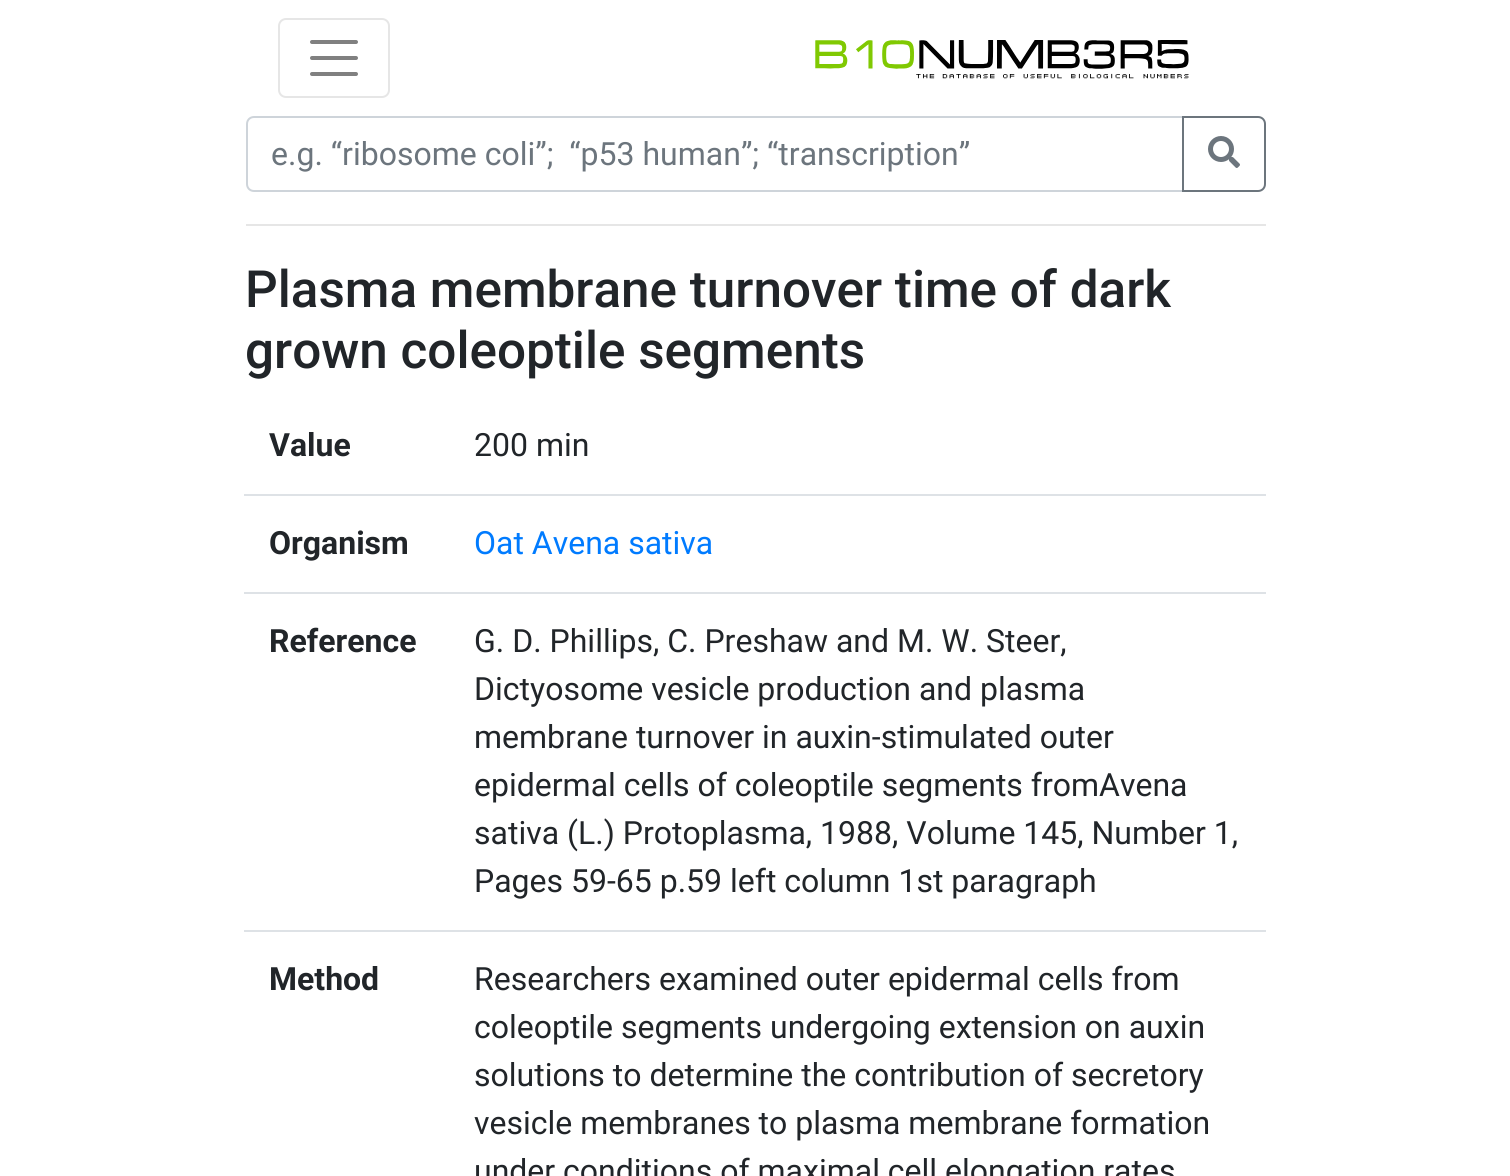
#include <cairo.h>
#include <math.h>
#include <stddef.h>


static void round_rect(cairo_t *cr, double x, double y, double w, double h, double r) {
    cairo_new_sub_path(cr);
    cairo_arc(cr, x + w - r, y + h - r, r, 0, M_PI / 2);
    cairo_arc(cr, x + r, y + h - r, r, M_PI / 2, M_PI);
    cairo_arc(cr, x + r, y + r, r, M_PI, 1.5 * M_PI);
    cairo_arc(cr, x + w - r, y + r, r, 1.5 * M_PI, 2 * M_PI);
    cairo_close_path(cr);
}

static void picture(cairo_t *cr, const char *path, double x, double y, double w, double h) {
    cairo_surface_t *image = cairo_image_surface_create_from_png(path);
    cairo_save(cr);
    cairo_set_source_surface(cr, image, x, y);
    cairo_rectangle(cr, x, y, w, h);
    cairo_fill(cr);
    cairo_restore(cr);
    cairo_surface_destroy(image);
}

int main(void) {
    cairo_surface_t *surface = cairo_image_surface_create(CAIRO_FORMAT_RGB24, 1510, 1176);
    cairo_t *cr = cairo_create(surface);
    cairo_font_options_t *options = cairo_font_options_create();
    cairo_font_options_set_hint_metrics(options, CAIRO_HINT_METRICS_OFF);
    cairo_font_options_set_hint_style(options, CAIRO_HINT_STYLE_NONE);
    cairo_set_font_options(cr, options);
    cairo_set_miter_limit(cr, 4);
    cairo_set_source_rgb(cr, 1, 1, 1);
    cairo_paint(cr);
    round_rect(cr, 279, 19, 110, 78, 7);
    cairo_set_source_rgb(cr, 0.902, 0.902, 0.902);
    cairo_stroke(cr);
    cairo_new_path(cr);
    cairo_move_to(cr, 312, 42);
    cairo_line_to(cr, 356, 42);
    cairo_move_to(cr, 312, 58);
    cairo_line_to(cr, 356, 58);
    cairo_move_to(cr, 312, 74);
    cairo_line_to(cr, 356, 74);
    cairo_set_source_rgb(cr, 0.502, 0.502, 0.502);
    cairo_set_line_width(cr, 4);
    cairo_set_line_cap(cr, CAIRO_LINE_CAP_ROUND);
    cairo_stroke(cr);
    picture(cr, "img1.png", 815, 40, 374, 39);
    cairo_new_path(cr);
    cairo_move_to(cr, 254, 117);
    cairo_line_to(cr, 1183, 117);
    cairo_line_to(cr, 1183, 191);
    cairo_line_to(cr, 254, 191);
    cairo_curve_to(cr, 250, 191, 247, 188, 247, 184);
    cairo_line_to(cr, 247, 124);
    cairo_curve_to(cr, 247, 120, 250, 117, 254, 117);
    cairo_close_path(cr);
    cairo_set_source_rgb(cr, 0.808, 0.831, 0.855);
    cairo_set_line_width(cr, 2);
    cairo_set_line_cap(cr, CAIRO_LINE_CAP_BUTT);
    cairo_stroke(cr);
    cairo_select_font_face(cr, "Roboto", CAIRO_FONT_SLANT_NORMAL, CAIRO_FONT_WEIGHT_NORMAL);
    cairo_set_font_size(cr, 32);
    cairo_set_source_rgb(cr, 0.424, 0.459, 0.49);
    cairo_move_to(cr, 271, 165);
    cairo_show_text(cr, "e.g. “ribosome coli”;  “p53 human”; “transcription”");
    cairo_new_path(cr);
    cairo_move_to(cr, 1183, 117);
    cairo_line_to(cr, 1258, 117);
    cairo_curve_to(cr, 1262, 117, 1265, 120, 1265, 124);
    cairo_line_to(cr, 1265, 184);
    cairo_curve_to(cr, 1265, 188, 1262, 191, 1258, 191);
    cairo_line_to(cr, 1183, 191);
    cairo_close_path(cr);
    cairo_stroke(cr);
    picture(cr, "img2.png", 1208, 136, 32, 32);
    cairo_set_source_rgb(cr, 0.902, 0.902, 0.902);
    cairo_rectangle(cr, 246, 224, 1020, 2);
    cairo_fill(cr);
    cairo_select_font_face(cr, "Roboto Medium", CAIRO_FONT_SLANT_NORMAL, CAIRO_FONT_WEIGHT_NORMAL);
    cairo_set_font_size(cr, 51.25);
    cairo_set_source_rgb(cr, 0.129, 0.145, 0.161);
    cairo_move_to(cr, 245, 307);
    cairo_show_text(cr, "Plasma membrane turnover time of dark");
    cairo_move_to(cr, 245, 368);
    cairo_show_text(cr, "grown coleoptile segments");
    cairo_select_font_face(cr, "Roboto", CAIRO_FONT_SLANT_NORMAL, CAIRO_FONT_WEIGHT_BOLD);
    cairo_set_font_size(cr, 32);
    cairo_move_to(cr, 269, 456);
    cairo_show_text(cr, "Value");
    cairo_select_font_face(cr, "Roboto", CAIRO_FONT_SLANT_NORMAL, CAIRO_FONT_WEIGHT_NORMAL);
    cairo_move_to(cr, 474, 456);
    cairo_show_text(cr, "200 min");
    cairo_select_font_face(cr, "Roboto", CAIRO_FONT_SLANT_NORMAL, CAIRO_FONT_WEIGHT_BOLD);
    cairo_move_to(cr, 269, 554);
    cairo_show_text(cr, "Organism");
    cairo_set_source_rgb(cr, 0.871, 0.886, 0.902);
    cairo_rectangle(cr, 244, 494, 1022, 2);
    cairo_fill(cr);
    cairo_select_font_face(cr, "Roboto", CAIRO_FONT_SLANT_NORMAL, CAIRO_FONT_WEIGHT_NORMAL);
    cairo_set_source_rgb(cr, 0, 0.482, 1);
    cairo_move_to(cr, 474, 554);
    cairo_show_text(cr, "Oat Avena sativa");
    cairo_select_font_face(cr, "Roboto", CAIRO_FONT_SLANT_NORMAL, CAIRO_FONT_WEIGHT_BOLD);
    cairo_set_source_rgb(cr, 0.129, 0.145, 0.161);
    cairo_move_to(cr, 269, 652);
    cairo_show_text(cr, "Reference");
    cairo_set_source_rgb(cr, 0.871, 0.886, 0.902);
    cairo_rectangle(cr, 244, 592, 1022, 2);
    cairo_fill(cr);
    cairo_select_font_face(cr, "Roboto", CAIRO_FONT_SLANT_NORMAL, CAIRO_FONT_WEIGHT_NORMAL);
    cairo_set_source_rgb(cr, 0.129, 0.145, 0.161);
    cairo_move_to(cr, 474, 652);
    cairo_show_text(cr, "G. D. Phillips, C. Preshaw and M. W. Steer,");
    cairo_move_to(cr, 474, 700);
    cairo_show_text(cr, "Dictyosome vesicle production and plasma");
    cairo_move_to(cr, 474, 748);
    cairo_show_text(cr, "membrane turnover in auxin-stimulated outer");
    cairo_move_to(cr, 474, 796);
    cairo_show_text(cr, "epidermal cells of coleoptile segments fromAvena");
    cairo_move_to(cr, 474, 844);
    cairo_show_text(cr, "sativa (L.) Protoplasma, 1988, Volume 145, Number 1,");
    cairo_move_to(cr, 474, 892);
    cairo_show_text(cr, "Pages 59-65 p.59 left column 1st paragraph");
    cairo_select_font_face(cr, "Roboto", CAIRO_FONT_SLANT_NORMAL, CAIRO_FONT_WEIGHT_BOLD);
    cairo_move_to(cr, 269, 990);
    cairo_show_text(cr, "Method");
    cairo_set_source_rgb(cr, 0.871, 0.886, 0.902);
    cairo_rectangle(cr, 244, 930, 1022, 2);
    cairo_fill(cr);
    cairo_select_font_face(cr, "Roboto", CAIRO_FONT_SLANT_NORMAL, CAIRO_FONT_WEIGHT_NORMAL);
    cairo_set_source_rgb(cr, 0.129, 0.145, 0.161);
    cairo_move_to(cr, 474, 990);
    cairo_show_text(cr, "Researchers examined outer epidermal cells from");
    cairo_move_to(cr, 474, 1038);
    cairo_show_text(cr, "coleoptile segments undergoing extension on auxin");
    cairo_move_to(cr, 474, 1086);
    cairo_show_text(cr, "solutions to determine the contribution of secretory");
    cairo_move_to(cr, 474, 1134);
    cairo_show_text(cr, "vesicle membranes to plasma membrane formation");
    cairo_move_to(cr, 474, 1182);
    cairo_show_text(cr, "under conditions of maximal cell elongation rates");
    cairo_surface_write_to_png(surface, "page.png");
    cairo_font_options_destroy(options);
    cairo_destroy(cr);
    cairo_surface_destroy(surface);
    return 0;
}
